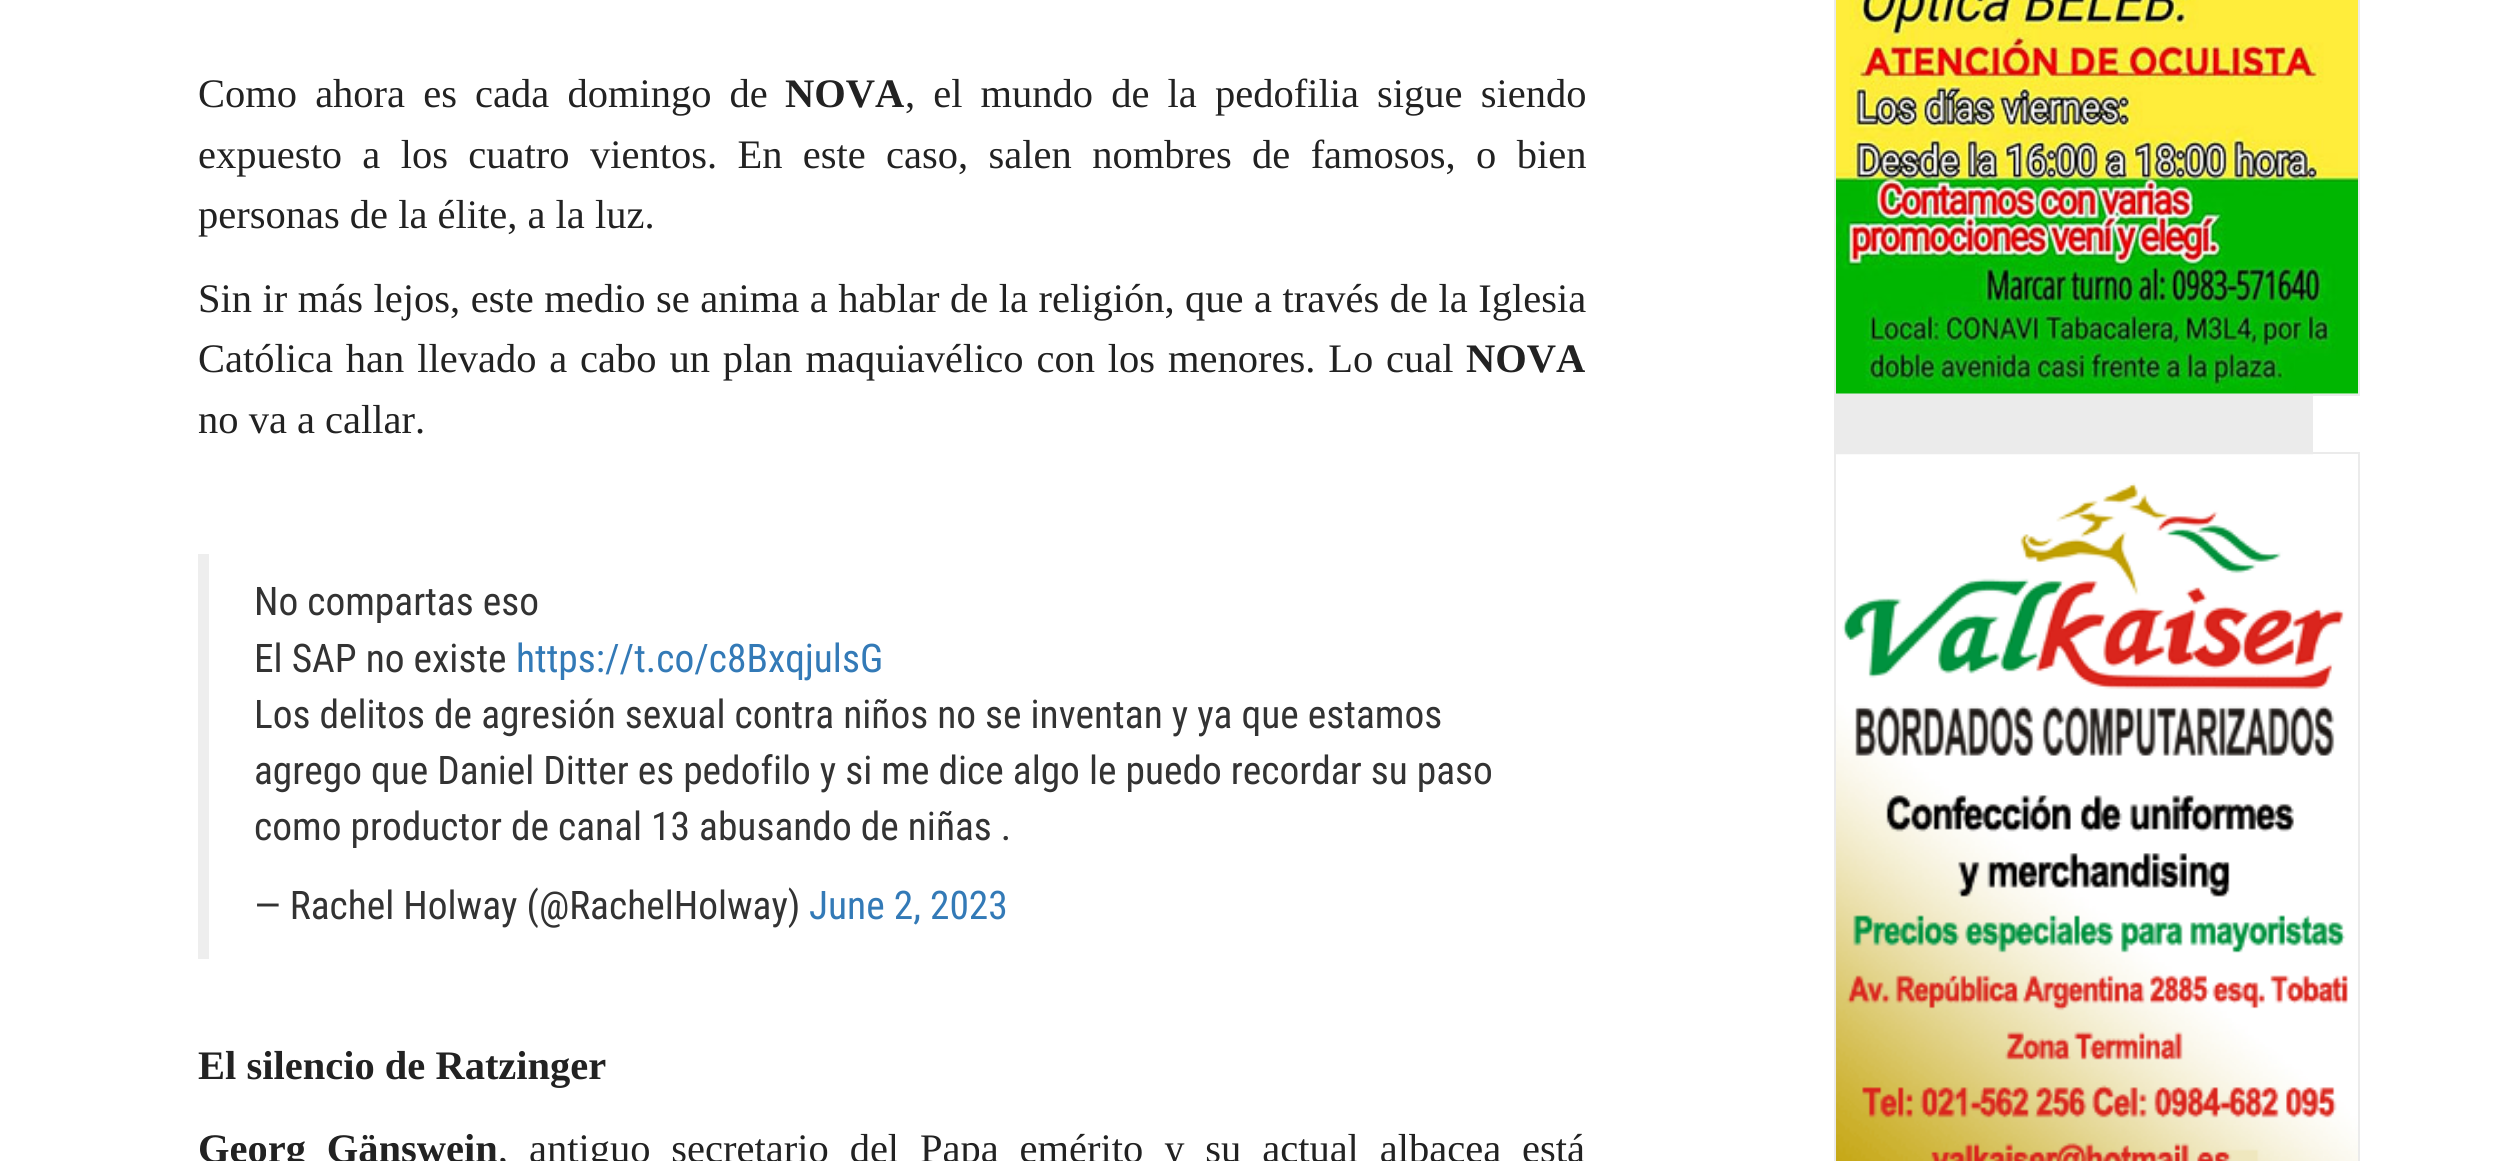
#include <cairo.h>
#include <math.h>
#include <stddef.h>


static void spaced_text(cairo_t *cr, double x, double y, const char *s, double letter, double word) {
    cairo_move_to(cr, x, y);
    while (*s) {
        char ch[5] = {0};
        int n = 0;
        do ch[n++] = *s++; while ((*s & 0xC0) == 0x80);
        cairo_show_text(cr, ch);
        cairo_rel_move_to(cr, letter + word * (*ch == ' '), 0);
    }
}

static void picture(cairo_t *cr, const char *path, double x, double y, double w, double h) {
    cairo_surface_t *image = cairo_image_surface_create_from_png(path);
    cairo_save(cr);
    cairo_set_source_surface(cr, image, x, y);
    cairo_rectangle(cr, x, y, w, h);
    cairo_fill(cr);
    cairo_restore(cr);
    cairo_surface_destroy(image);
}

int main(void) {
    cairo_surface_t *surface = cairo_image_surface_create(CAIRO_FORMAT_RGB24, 2509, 1161);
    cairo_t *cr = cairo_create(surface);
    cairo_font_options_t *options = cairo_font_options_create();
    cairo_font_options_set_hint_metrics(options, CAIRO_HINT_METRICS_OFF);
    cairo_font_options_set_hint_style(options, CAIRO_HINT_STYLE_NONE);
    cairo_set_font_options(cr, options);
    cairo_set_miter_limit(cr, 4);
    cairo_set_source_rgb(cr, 1, 1, 1);
    cairo_paint(cr);
    cairo_select_font_face(cr, "Liberation Serif", CAIRO_FONT_SLANT_NORMAL, CAIRO_FONT_WEIGHT_NORMAL);
    cairo_set_font_size(cr, 40.5);
    cairo_set_source_rgb(cr, 0.133, 0.133, 0.133);
    spaced_text(cr, 198, 107, "Como ahora es cada domingo de", 0, 8);
    cairo_select_font_face(cr, "Liberation Serif", CAIRO_FONT_SLANT_NORMAL, CAIRO_FONT_WEIGHT_BOLD);
    cairo_move_to(cr, 785, 107);
    cairo_show_text(cr, "NOVA");
    cairo_select_font_face(cr, "Liberation Serif", CAIRO_FONT_SLANT_NORMAL, CAIRO_FONT_WEIGHT_NORMAL);
    spaced_text(cr, 905, 107, ", el mundo de la pedofilia sigue siendo", 0, 8);
    spaced_text(cr, 198, 168, "expuesto a los cuatro vientos. En este caso, salen nombres de famosos, o bien", 0, 10.25);
    cairo_move_to(cr, 198, 228);
    cairo_show_text(cr, "personas de la élite, a la luz.");
    spaced_text(cr, 198, 312, "Sin ir más lejos, este medio se anima a hablar de la religión, que a través de la Iglesia", 0, 0.4);
    spaced_text(cr, 198, 372, "Católica han llevado a cabo un plan maquiavélico con los menores. Lo cual", 0, 2.75);
    cairo_select_font_face(cr, "Liberation Serif", CAIRO_FONT_SLANT_NORMAL, CAIRO_FONT_WEIGHT_BOLD);
    cairo_move_to(cr, 1466, 372);
    cairo_show_text(cr, "NOVA");
    cairo_select_font_face(cr, "Liberation Serif", CAIRO_FONT_SLANT_NORMAL, CAIRO_FONT_WEIGHT_NORMAL);
    cairo_move_to(cr, 198, 433);
    cairo_show_text(cr, "no va a callar.");
    cairo_set_source_rgb(cr, 0.933, 0.933, 0.933);
    cairo_rectangle(cr, 198, 554, 11, 405);
    cairo_fill(cr);
    cairo_select_font_face(cr, "Roboto Condensed", CAIRO_FONT_SLANT_NORMAL, CAIRO_FONT_WEIGHT_NORMAL);
    cairo_set_font_size(cr, 39.4);
    cairo_set_source_rgb(cr, 0.2, 0.2, 0.2);
    cairo_move_to(cr, 254, 615);
    cairo_show_text(cr, "No compartas eso");
    cairo_move_to(cr, 254, 672);
    cairo_show_text(cr, "El SAP no existe");
    cairo_set_source_rgb(cr, 0.2, 0.478, 0.718);
    cairo_move_to(cr, 516, 672);
    cairo_show_text(cr, "https://t.co/c8BxqjulsG");
    cairo_set_source_rgb(cr, 0.2, 0.2, 0.2);
    cairo_move_to(cr, 254, 728);
    cairo_show_text(cr, "Los delitos de agresión sexual contra niños no se inventan y ya que estamos");
    cairo_move_to(cr, 254, 784);
    cairo_show_text(cr, "agrego que Daniel Ditter es pedofilo y si me dice algo le puedo recordar su paso");
    cairo_move_to(cr, 254, 840);
    cairo_show_text(cr, "como productor de canal 13 abusando de niñas .");
    cairo_move_to(cr, 254, 919);
    cairo_show_text(cr, "— Rachel Holway (@RachelHolway)");
    cairo_set_source_rgb(cr, 0.2, 0.478, 0.718);
    cairo_move_to(cr, 809, 919);
    cairo_show_text(cr, "June 2, 2023");
    cairo_select_font_face(cr, "Liberation Serif", CAIRO_FONT_SLANT_NORMAL, CAIRO_FONT_WEIGHT_BOLD);
    cairo_set_font_size(cr, 40.5);
    cairo_set_source_rgb(cr, 0.133, 0.133, 0.133);
    cairo_move_to(cr, 198, 1079);
    cairo_show_text(cr, "El silencio de Ratzinger");
    spaced_text(cr, 198, 1162, "Georg Gänswein", 0, 10.75);
    cairo_select_font_face(cr, "Liberation Serif", CAIRO_FONT_SLANT_NORMAL, CAIRO_FONT_WEIGHT_NORMAL);
    spaced_text(cr, 498, 1162, ", antiguo secretario del Papa emérito y su actual albacea está", 0, 10.75);
    cairo_set_source_rgb(cr, 0.918, 0.918, 0.918);
    cairo_rectangle(cr, 1834, 393, 479, 62);
    cairo_fill(cr);
    cairo_rectangle(cr, 1835, -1, 524, 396);
    cairo_stroke(cr);
    picture(cr, "img1.png", 1836, 0, 522, 394);
    cairo_rectangle(cr, 1835, 453, 524, 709);
    cairo_stroke(cr);
    picture(cr, "img2.png", 1836, 454, 522, 707);
    cairo_surface_write_to_png(surface, "page.png");
    cairo_font_options_destroy(options);
    cairo_destroy(cr);
    cairo_surface_destroy(surface);
    return 0;
}
